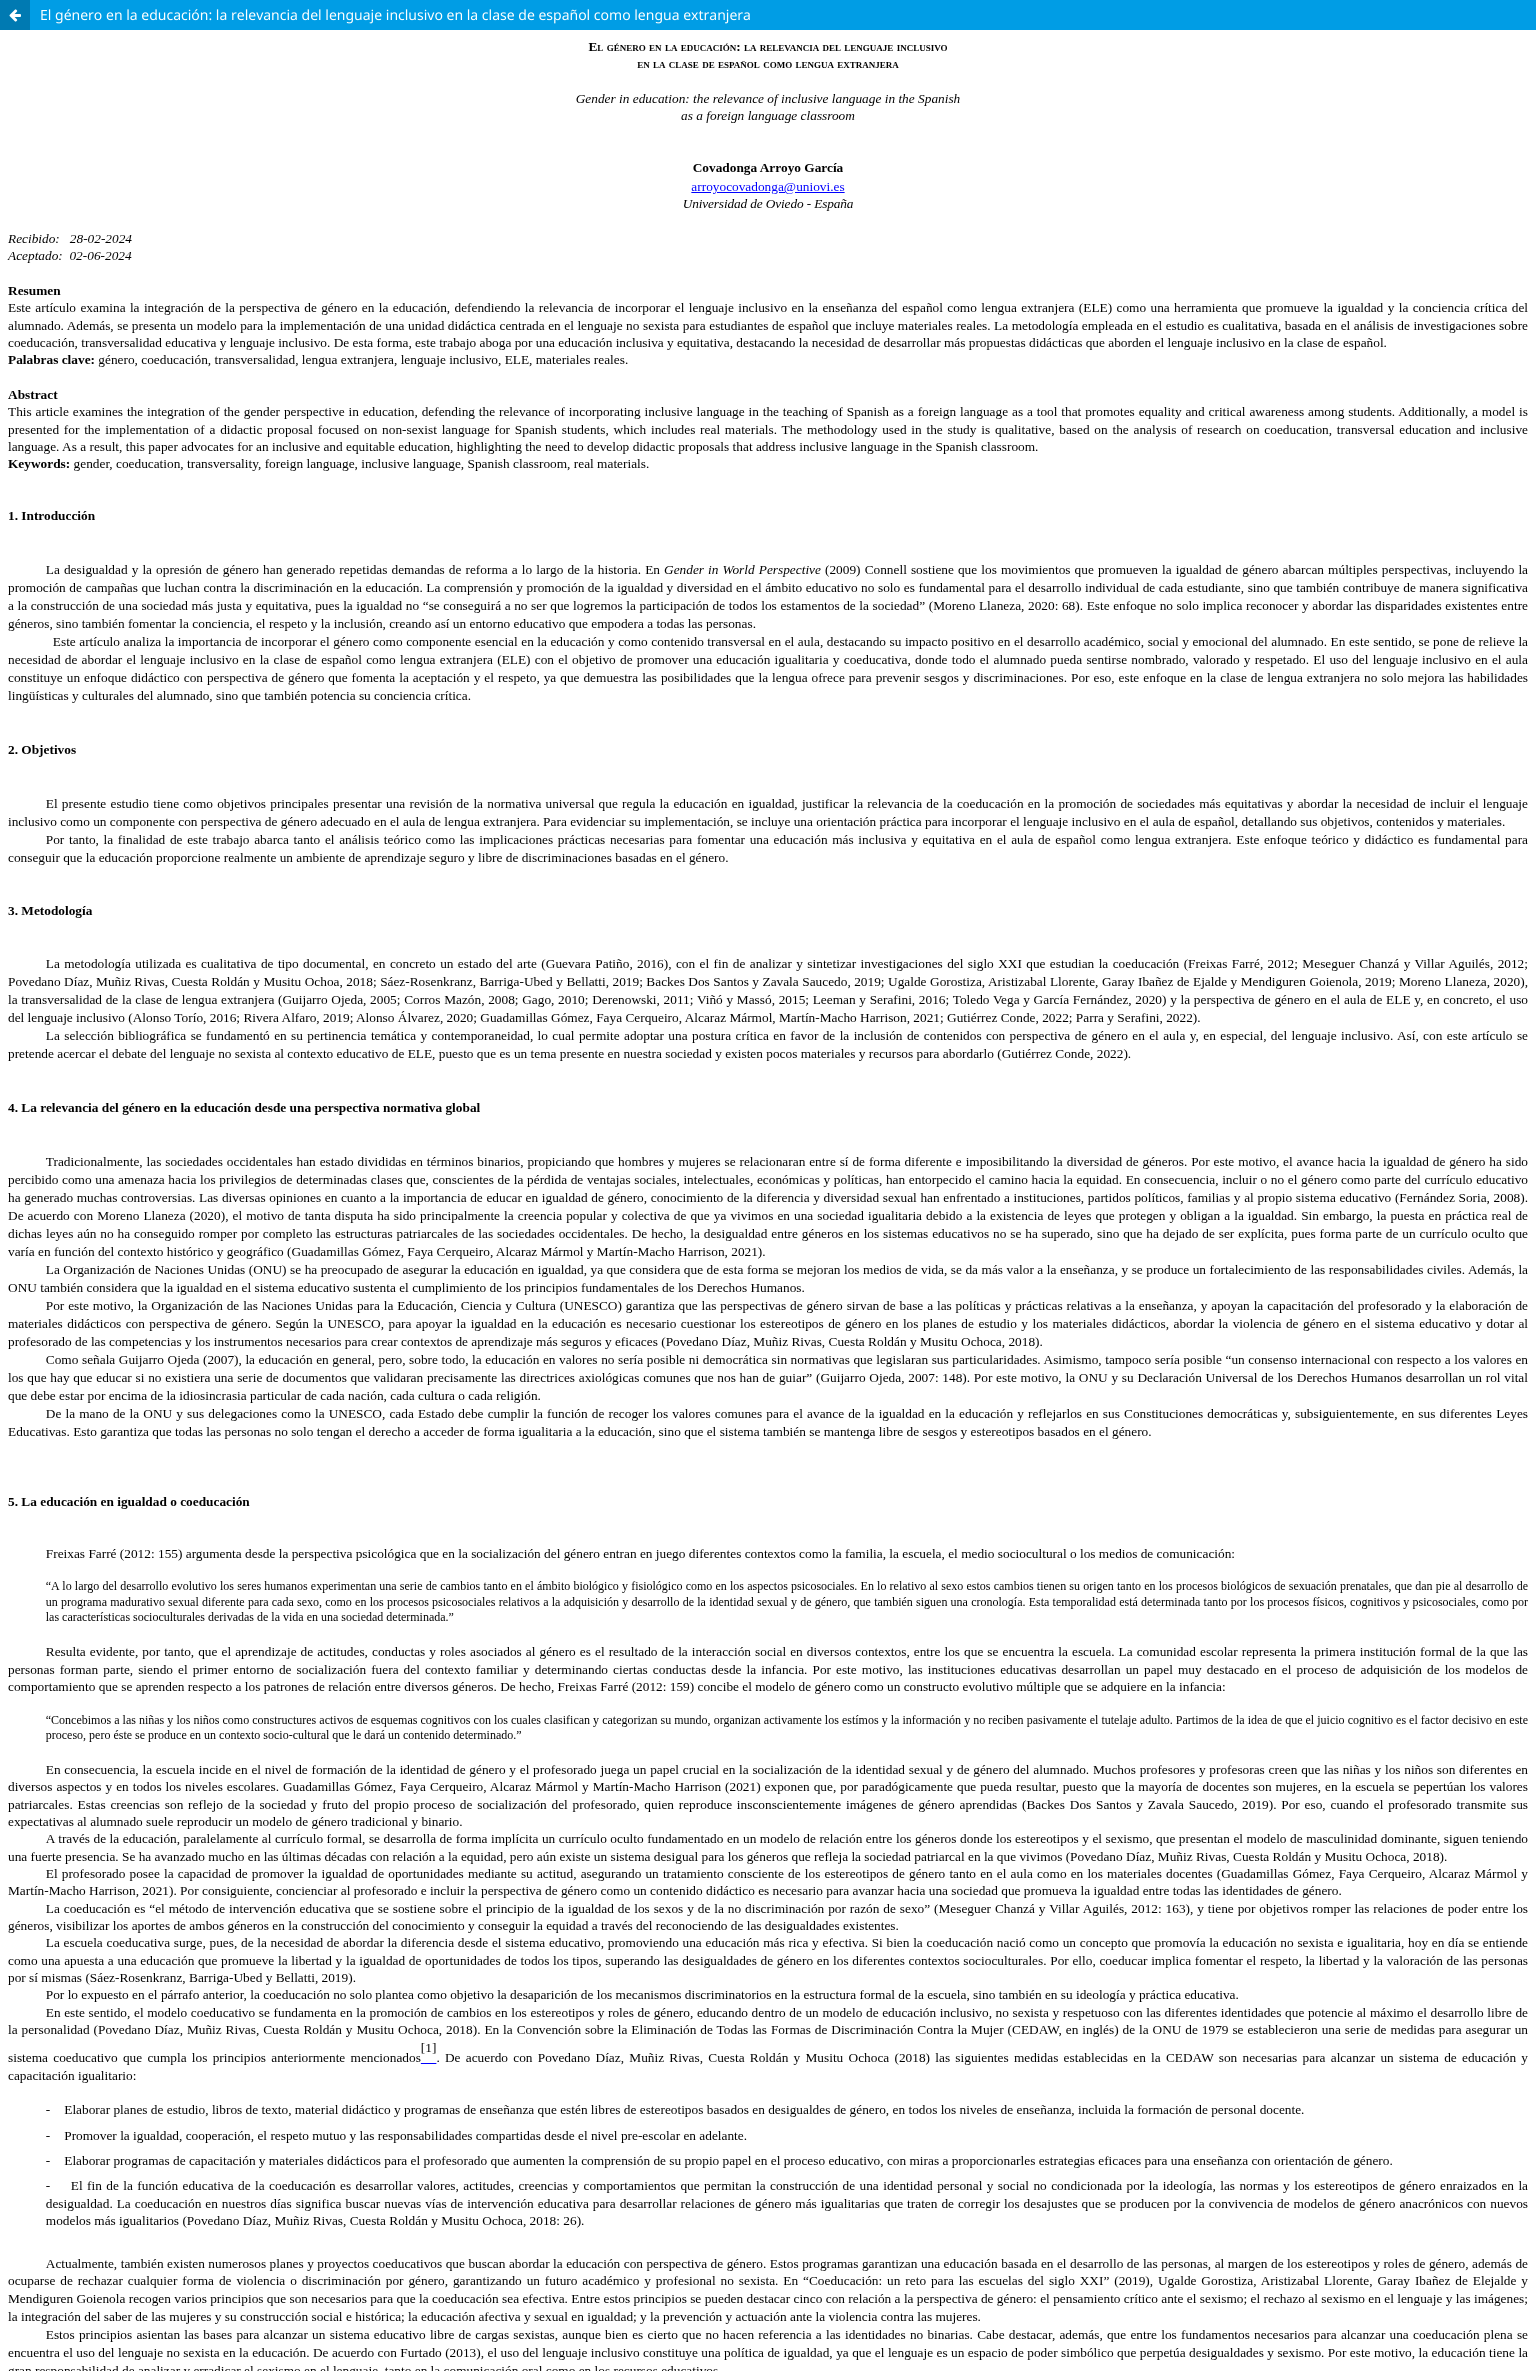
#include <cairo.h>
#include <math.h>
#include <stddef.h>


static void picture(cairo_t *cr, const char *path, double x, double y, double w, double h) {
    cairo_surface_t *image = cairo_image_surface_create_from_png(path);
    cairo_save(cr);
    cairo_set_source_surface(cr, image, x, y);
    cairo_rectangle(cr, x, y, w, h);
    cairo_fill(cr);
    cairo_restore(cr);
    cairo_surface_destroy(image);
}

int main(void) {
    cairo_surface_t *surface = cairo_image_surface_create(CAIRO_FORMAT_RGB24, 1536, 2371);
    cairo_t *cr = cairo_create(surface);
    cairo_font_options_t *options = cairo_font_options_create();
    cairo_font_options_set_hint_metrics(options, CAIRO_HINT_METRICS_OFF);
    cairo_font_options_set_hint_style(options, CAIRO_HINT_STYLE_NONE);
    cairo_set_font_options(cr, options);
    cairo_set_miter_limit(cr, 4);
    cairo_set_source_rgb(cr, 1, 1, 1);
    cairo_paint(cr);
    cairo_set_source_rgb(cr, 0, 0.616, 0.898);
    cairo_rectangle(cr, 30, 0, 1506, 30);
    cairo_fill(cr);
    cairo_set_source_rgb(cr, 0, 0.478, 0.698);
    cairo_rectangle(cr, 0, 0, 30, 30);
    cairo_fill(cr);
    picture(cr, "img1.png", 9, 9, 12, 13);
    cairo_select_font_face(cr, "Noto Sans", CAIRO_FONT_SLANT_NORMAL, CAIRO_FONT_WEIGHT_NORMAL);
    cairo_set_font_size(cr, 14);
    cairo_set_source_rgb(cr, 1, 1, 1);
    cairo_move_to(cr, 40, 20);
    cairo_show_text(cr, "El género en la educación: la relevancia del lenguaje inclusivo en la clase de español como lengua extranjera");
    picture(cr, "img2.png", 7, 43, 1521, 2328);
    cairo_surface_write_to_png(surface, "page.png");
    cairo_font_options_destroy(options);
    cairo_destroy(cr);
    cairo_surface_destroy(surface);
    return 0;
}
